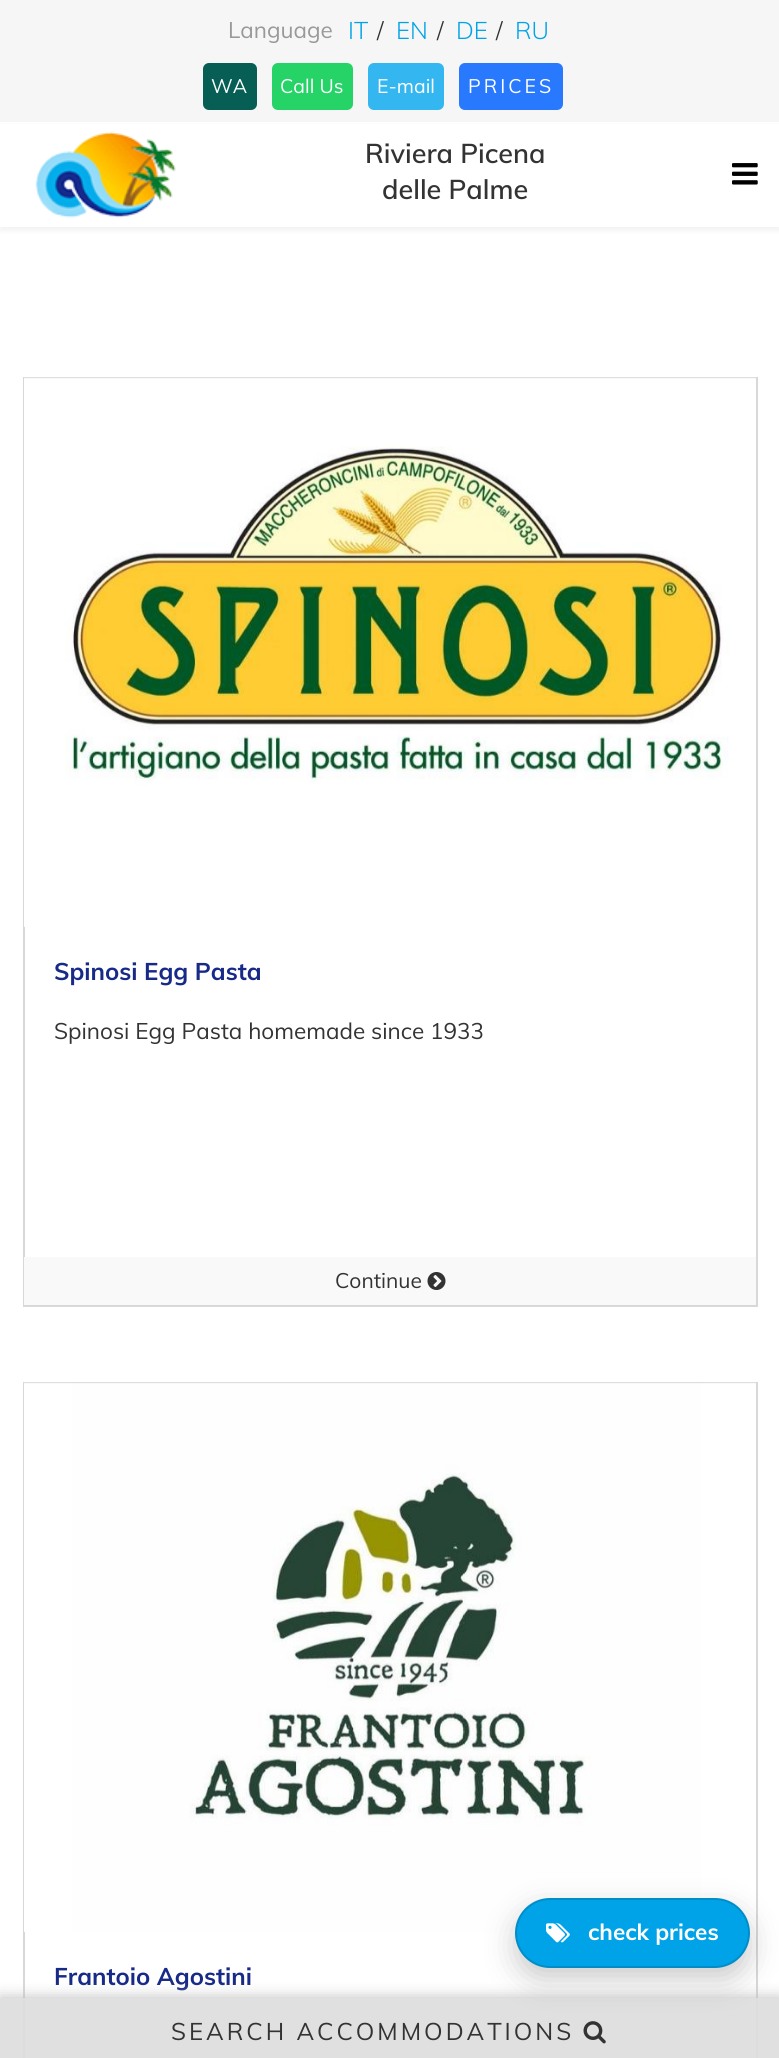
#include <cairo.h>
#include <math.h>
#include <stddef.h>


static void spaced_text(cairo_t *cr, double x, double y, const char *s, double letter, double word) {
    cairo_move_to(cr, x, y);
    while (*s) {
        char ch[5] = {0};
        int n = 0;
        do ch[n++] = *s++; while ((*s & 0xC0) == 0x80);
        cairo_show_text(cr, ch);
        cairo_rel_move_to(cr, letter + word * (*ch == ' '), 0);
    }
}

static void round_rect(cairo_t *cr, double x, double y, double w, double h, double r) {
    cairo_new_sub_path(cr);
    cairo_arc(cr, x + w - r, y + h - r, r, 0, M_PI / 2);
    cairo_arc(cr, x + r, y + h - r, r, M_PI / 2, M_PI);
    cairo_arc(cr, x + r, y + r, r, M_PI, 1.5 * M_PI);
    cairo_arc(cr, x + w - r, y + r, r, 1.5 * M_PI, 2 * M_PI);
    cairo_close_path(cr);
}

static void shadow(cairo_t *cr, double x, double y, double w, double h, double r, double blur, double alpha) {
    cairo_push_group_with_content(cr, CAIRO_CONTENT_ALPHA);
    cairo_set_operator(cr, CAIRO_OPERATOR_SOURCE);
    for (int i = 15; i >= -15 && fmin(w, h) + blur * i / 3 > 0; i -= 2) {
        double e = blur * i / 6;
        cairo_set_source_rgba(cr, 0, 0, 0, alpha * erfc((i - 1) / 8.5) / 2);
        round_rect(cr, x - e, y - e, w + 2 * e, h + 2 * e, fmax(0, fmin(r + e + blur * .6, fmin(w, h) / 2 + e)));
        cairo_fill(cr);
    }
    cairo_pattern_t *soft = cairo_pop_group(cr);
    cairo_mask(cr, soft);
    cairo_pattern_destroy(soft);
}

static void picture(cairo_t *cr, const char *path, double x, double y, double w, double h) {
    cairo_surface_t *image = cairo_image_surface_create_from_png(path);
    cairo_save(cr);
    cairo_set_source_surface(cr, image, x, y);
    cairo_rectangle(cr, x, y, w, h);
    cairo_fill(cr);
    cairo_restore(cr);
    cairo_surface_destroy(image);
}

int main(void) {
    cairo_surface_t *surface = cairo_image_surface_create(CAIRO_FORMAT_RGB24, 779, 2058);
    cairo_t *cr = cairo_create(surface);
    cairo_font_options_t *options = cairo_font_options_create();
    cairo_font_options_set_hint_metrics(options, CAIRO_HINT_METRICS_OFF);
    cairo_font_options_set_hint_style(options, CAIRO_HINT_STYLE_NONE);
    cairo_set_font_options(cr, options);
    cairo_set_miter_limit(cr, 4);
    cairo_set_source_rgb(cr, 1, 1, 1);
    cairo_paint(cr);
    cairo_set_source_rgb(cr, 0.961, 0.961, 0.961);
    cairo_rectangle(cr, 0, 0, 779, 122);
    cairo_fill(cr);
    cairo_select_font_face(cr, "Muli", CAIRO_FONT_SLANT_NORMAL, CAIRO_FONT_WEIGHT_NORMAL);
    cairo_set_font_size(cr, 22.5);
    cairo_set_source_rgb(cr, 0.6, 0.6, 0.6);
    cairo_move_to(cr, 228, 38);
    cairo_show_text(cr, "Language");
    cairo_select_font_face(cr, "Muli Light", CAIRO_FONT_SLANT_NORMAL, CAIRO_FONT_WEIGHT_NORMAL);
    cairo_set_font_size(cr, 24);
    cairo_set_source_rgb(cr, 0, 0.639, 0.906);
    cairo_move_to(cr, 348, 39);
    cairo_show_text(cr, "IT");
    cairo_set_source_rgb(cr, 0.2, 0.2, 0.2);
    cairo_move_to(cr, 377, 39);
    cairo_show_text(cr, "/");
    cairo_set_source_rgb(cr, 0, 0.639, 0.906);
    cairo_move_to(cr, 396, 39);
    cairo_show_text(cr, "EN");
    cairo_set_source_rgb(cr, 0.2, 0.2, 0.2);
    cairo_move_to(cr, 437, 39);
    cairo_show_text(cr, "/");
    cairo_set_source_rgb(cr, 0, 0.639, 0.906);
    cairo_move_to(cr, 456, 39);
    cairo_show_text(cr, "DE");
    cairo_set_source_rgb(cr, 0.2, 0.2, 0.2);
    cairo_move_to(cr, 496, 39);
    cairo_show_text(cr, "/");
    cairo_set_source_rgb(cr, 0, 0.639, 0.906);
    cairo_move_to(cr, 515, 39);
    cairo_show_text(cr, "RU");
    cairo_set_source_rgb(cr, 0.027, 0.369, 0.329);
    round_rect(cr, 203, 63, 54, 47, 6);
    cairo_fill(cr);
    cairo_select_font_face(cr, "Muli", CAIRO_FONT_SLANT_NORMAL, CAIRO_FONT_WEIGHT_NORMAL);
    cairo_set_font_size(cr, 19.5);
    cairo_set_source_rgb(cr, 1, 1, 1);
    cairo_move_to(cr, 211, 93);
    cairo_show_text(cr, "WA");
    cairo_set_source_rgb(cr, 0.145, 0.827, 0.4);
    round_rect(cr, 272, 63, 81, 47, 6);
    cairo_fill(cr);
    cairo_set_source_rgb(cr, 1, 1, 1);
    cairo_move_to(cr, 280, 93);
    cairo_show_text(cr, "Call Us");
    cairo_set_source_rgb(cr, 0.204, 0.718, 0.945);
    round_rect(cr, 368, 63, 76, 47, 6);
    cairo_fill(cr);
    cairo_set_source_rgb(cr, 1, 1, 1);
    cairo_move_to(cr, 377, 93);
    cairo_show_text(cr, "E-mail");
    cairo_set_source_rgb(cr, 0.161, 0.475, 1);
    round_rect(cr, 459, 63, 104, 47, 6);
    cairo_fill(cr);
    cairo_set_source_rgb(cr, 1, 1, 1);
    spaced_text(cr, 468, 93, "PRICES", 3, 0);
    cairo_set_source_rgb(cr, 0, 0, 0);
    shadow(cr, 0, 126, 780, 105, 0, 2, 0.05);
    cairo_set_source_rgb(cr, 1, 1, 1);
    cairo_rectangle(cr, 0, 124, 779, 103);
    cairo_fill(cr);
    picture(cr, "img1.png", 35, 131, 141, 87);
    cairo_select_font_face(cr, "Muli SemiBold", CAIRO_FONT_SLANT_NORMAL, CAIRO_FONT_WEIGHT_NORMAL);
    cairo_set_font_size(cr, 27);
    cairo_set_source_rgb(cr, 0.2, 0.2, 0.2);
    cairo_move_to(cr, 365, 163);
    cairo_show_text(cr, "Riviera Picena");
    cairo_move_to(cr, 382, 199);
    cairo_show_text(cr, "delle Palme");
    picture(cr, "img2.png", 732, 163, 26, 22);
    cairo_rectangle(cr, 24, 378, 733, 928);
    cairo_set_source_rgb(cr, 0.847, 0.847, 0.847);
    cairo_stroke(cr);
    picture(cr, "img3.png", 24, 377, 732, 550);
    cairo_select_font_face(cr, "Muli", CAIRO_FONT_SLANT_NORMAL, CAIRO_FONT_WEIGHT_BOLD);
    cairo_set_font_size(cr, 24);
    cairo_set_source_rgb(cr, 0.094, 0.165, 0.529);
    cairo_move_to(cr, 54, 980);
    cairo_show_text(cr, "Spinosi Egg Pasta");
    cairo_select_font_face(cr, "Muli", CAIRO_FONT_SLANT_NORMAL, CAIRO_FONT_WEIGHT_NORMAL);
    cairo_set_font_size(cr, 22.5);
    cairo_set_source_rgb(cr, 0.2, 0.2, 0.2);
    cairo_move_to(cr, 54, 1039);
    cairo_show_text(cr, "Spinosi Egg Pasta homemade since 1933");
    cairo_set_source_rgb(cr, 0.973, 0.973, 0.973);
    cairo_rectangle(cr, 24, 1257, 732, 48);
    cairo_fill(cr);
    cairo_set_font_size(cr, 21);
    cairo_set_source_rgb(cr, 0.2, 0.2, 0.2);
    cairo_move_to(cr, 335, 1288);
    cairo_show_text(cr, "Continue");
    picture(cr, "img4.png", 427, 1272, 19, 18);
    cairo_rectangle(cr, 24, 1383, 733, 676);
    cairo_set_source_rgb(cr, 0.847, 0.847, 0.847);
    cairo_stroke(cr);
    picture(cr, "img5.png", 24, 1382, 732, 550);
    cairo_select_font_face(cr, "Muli", CAIRO_FONT_SLANT_NORMAL, CAIRO_FONT_WEIGHT_BOLD);
    cairo_set_font_size(cr, 24);
    cairo_set_source_rgb(cr, 0.094, 0.165, 0.529);
    cairo_move_to(cr, 54, 1985);
    cairo_show_text(cr, "Frantoio Agostini");
    cairo_save(cr);
    cairo_rectangle(cr, 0, 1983, 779, 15);
    cairo_clip(cr);
    cairo_set_source_rgb(cr, 0.733, 0.733, 0.733);
    shadow(cr, 0, 1998, 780, 60, 0, 7.5, 1);
    cairo_restore(cr);
    cairo_set_source_rgba(cr, 0, 0, 0, 0.6);
    cairo_rectangle(cr, 0, 1998, 779, 60);
    cairo_fill(cr);
    cairo_set_source_rgba(cr, 1, 1, 1, 0.8);
    cairo_rectangle(cr, 0, 1998, 779, 60);
    cairo_fill(cr);
    cairo_select_font_face(cr, "Muli", CAIRO_FONT_SLANT_NORMAL, CAIRO_FONT_WEIGHT_NORMAL);
    cairo_set_source_rgb(cr, 0.2, 0.2, 0.2);
    spaced_text(cr, 171, 2040, "SEARCH ACCOMMODATIONS", 3, 0);
    picture(cr, "img6.png", 583, 2021, 23, 23);
    cairo_set_source_rgb(cr, 0, 0, 0);
    shadow(cr, 515, 1910, 235, 70, 35, 15, 0.2);
    cairo_set_source_rgb(cr, 0, 0.639, 0.906);
    round_rect(cr, 516, 1899, 233, 68, 34);
    cairo_fill_preserve(cr);
    cairo_set_source_rgb(cr, 0, 0.553, 0.784);
    cairo_stroke(cr);
    picture(cr, "img7.png", 546, 1923, 24, 20);
    cairo_select_font_face(cr, "Muli", CAIRO_FONT_SLANT_NORMAL, CAIRO_FONT_WEIGHT_BOLD);
    cairo_set_font_size(cr, 22.5);
    cairo_set_source_rgb(cr, 1, 1, 1);
    cairo_move_to(cr, 588, 1940);
    cairo_show_text(cr, "check prices");
    cairo_surface_write_to_png(surface, "page.png");
    cairo_font_options_destroy(options);
    cairo_destroy(cr);
    cairo_surface_destroy(surface);
    return 0;
}
